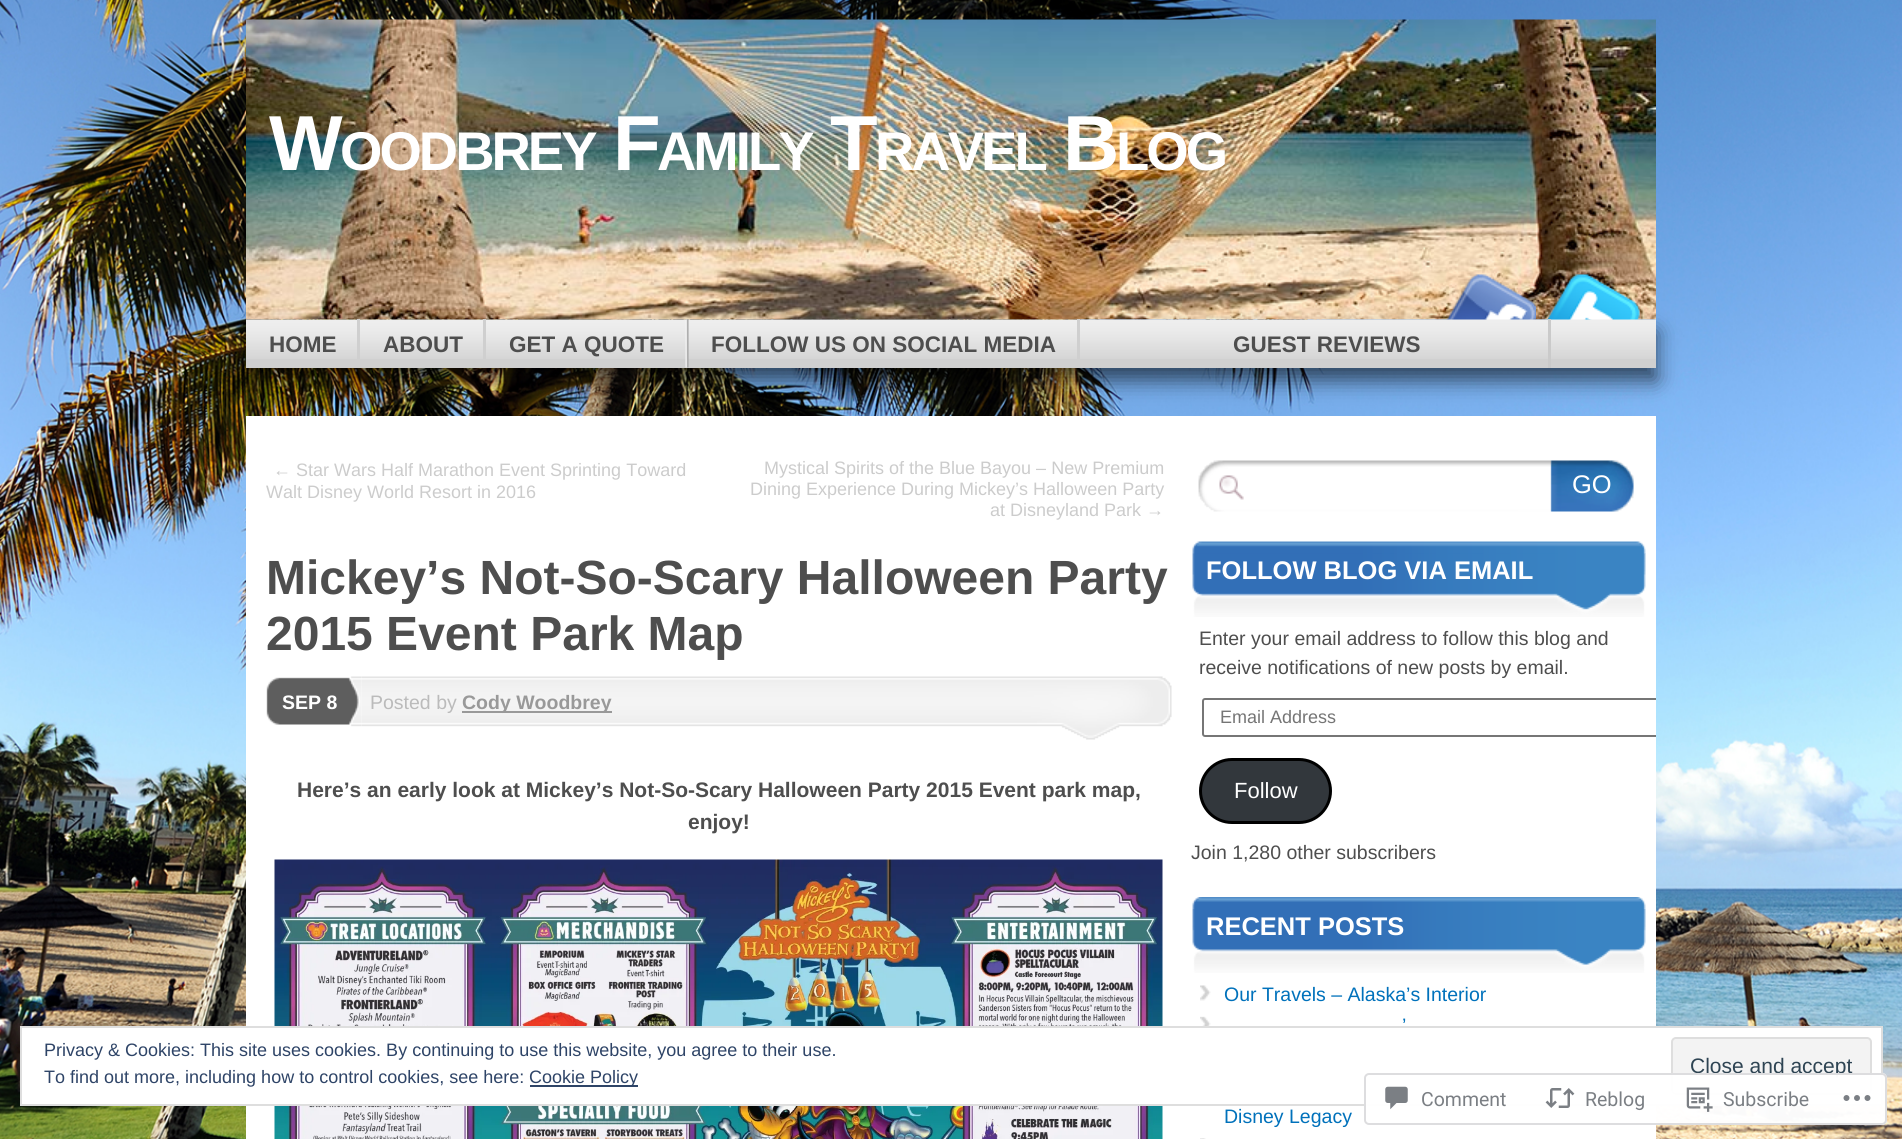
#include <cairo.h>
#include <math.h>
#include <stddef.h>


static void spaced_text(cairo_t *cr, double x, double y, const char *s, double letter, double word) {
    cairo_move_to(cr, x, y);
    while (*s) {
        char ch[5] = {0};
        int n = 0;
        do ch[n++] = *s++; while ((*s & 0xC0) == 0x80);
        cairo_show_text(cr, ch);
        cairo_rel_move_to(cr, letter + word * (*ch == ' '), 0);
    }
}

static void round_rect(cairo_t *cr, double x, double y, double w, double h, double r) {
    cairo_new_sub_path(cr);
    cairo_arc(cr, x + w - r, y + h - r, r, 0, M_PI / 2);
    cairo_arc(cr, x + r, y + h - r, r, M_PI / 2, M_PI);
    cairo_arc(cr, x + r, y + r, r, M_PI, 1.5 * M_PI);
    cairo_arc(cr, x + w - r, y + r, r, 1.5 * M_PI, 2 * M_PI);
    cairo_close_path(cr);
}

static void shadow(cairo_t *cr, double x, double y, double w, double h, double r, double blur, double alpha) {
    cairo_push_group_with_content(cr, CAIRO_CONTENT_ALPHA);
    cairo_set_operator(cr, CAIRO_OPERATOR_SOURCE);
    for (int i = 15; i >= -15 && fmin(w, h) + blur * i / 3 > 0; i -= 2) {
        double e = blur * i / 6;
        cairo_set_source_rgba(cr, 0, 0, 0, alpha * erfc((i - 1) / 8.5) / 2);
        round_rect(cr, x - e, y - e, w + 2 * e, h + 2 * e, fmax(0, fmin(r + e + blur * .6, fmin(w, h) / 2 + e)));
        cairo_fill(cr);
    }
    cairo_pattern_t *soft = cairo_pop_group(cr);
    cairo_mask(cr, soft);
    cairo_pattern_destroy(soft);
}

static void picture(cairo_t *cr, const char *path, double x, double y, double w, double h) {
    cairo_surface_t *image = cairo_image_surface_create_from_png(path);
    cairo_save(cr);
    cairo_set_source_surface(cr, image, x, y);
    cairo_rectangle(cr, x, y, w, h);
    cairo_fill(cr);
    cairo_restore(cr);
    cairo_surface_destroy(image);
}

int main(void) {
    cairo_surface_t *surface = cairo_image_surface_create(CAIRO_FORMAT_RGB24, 1902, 1139);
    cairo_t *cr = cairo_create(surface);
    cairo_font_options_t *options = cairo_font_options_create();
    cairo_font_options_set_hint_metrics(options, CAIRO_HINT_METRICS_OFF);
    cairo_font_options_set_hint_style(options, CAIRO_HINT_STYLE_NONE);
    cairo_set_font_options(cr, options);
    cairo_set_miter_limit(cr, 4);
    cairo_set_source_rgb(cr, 1, 1, 1);
    cairo_paint(cr);
    picture(cr, "img1.png", 0, 0, 1902, 1139);
    picture(cr, "img2.png", 246, 19, 1410, 301);
    cairo_select_font_face(cr, "Liberation Sans", CAIRO_FONT_SLANT_NORMAL, CAIRO_FONT_WEIGHT_BOLD);
    cairo_set_font_size(cr, 78);
    cairo_set_source_rgb(cr, 1, 1, 1);
    spaced_text(cr, 269, 170, "W", -3, 0);
    cairo_set_font_size(cr, 54.5);
    spaced_text(cr, 340, 170, "OODBREY", -3, 0);
    cairo_set_font_size(cr, 78);
    spaced_text(cr, 613, 170, "F", -3, 0);
    cairo_set_font_size(cr, 54.5);
    spaced_text(cr, 657, 170, "AMILY", -3, 0);
    cairo_set_font_size(cr, 78);
    spaced_text(cr, 830, 170, "T", -3, 0);
    cairo_set_font_size(cr, 54.5);
    spaced_text(cr, 875, 170, "RAVEL", -3, 0);
    cairo_set_font_size(cr, 78);
    spaced_text(cr, 1063, 170, "B", -3, 0);
    cairo_set_font_size(cr, 54.5);
    spaced_text(cr, 1116, 170, "LOG", -3, 0);
    cairo_set_source_rgb(cr, 0, 0, 0);
    shadow(cr, 246, 332, 1410, 48, 0, 10.5, 0.6);
    cairo_set_source_rgb(cr, 0.816, 0.816, 0.816);
    cairo_rectangle(cr, 246, 359, 1410, 9);
    cairo_fill(cr);
    picture(cr, "img3.png", 1445, 274, 91, 46);
    picture(cr, "img4.png", 1546, 274, 94, 46);
    picture(cr, "img5.png", 246, 319, 1410, 40);
    cairo_set_source_rgb(cr, 0.812, 0.812, 0.812);
    cairo_rectangle(cr, 357, 319, 3, 40);
    cairo_fill(cr);
    cairo_set_font_size(cr, 22.5);
    cairo_set_source_rgb(cr, 0.306, 0.306, 0.306);
    cairo_move_to(cr, 269, 352);
    cairo_show_text(cr, "HOME");
    cairo_set_source_rgb(cr, 0.812, 0.812, 0.812);
    cairo_rectangle(cr, 483, 319, 3, 40);
    cairo_fill(cr);
    cairo_set_source_rgb(cr, 0.306, 0.306, 0.306);
    cairo_move_to(cr, 383, 352);
    cairo_show_text(cr, "ABOUT");
    picture(cr, "img6.png", 685, 319, 4, 49);
    cairo_move_to(cr, 509, 352);
    cairo_show_text(cr, "GET A QUOTE");
    cairo_set_source_rgb(cr, 0.812, 0.812, 0.812);
    cairo_rectangle(cr, 1077, 319, 3, 40);
    cairo_fill(cr);
    cairo_set_source_rgb(cr, 0.306, 0.306, 0.306);
    cairo_move_to(cr, 711, 352);
    cairo_show_text(cr, "FOLLOW US ON SOCIAL MEDIA");
    cairo_set_source_rgb(cr, 0.792, 0.792, 0.792);
    cairo_rectangle(cr, 1548, 319, 3, 49);
    cairo_fill(cr);
    cairo_set_source_rgb(cr, 0.306, 0.306, 0.306);
    cairo_move_to(cr, 1233, 352);
    cairo_show_text(cr, "GUEST REVIEWS");
    cairo_set_source_rgb(cr, 1, 1, 1);
    cairo_rectangle(cr, 246, 416, 1410, 723);
    cairo_fill(cr);
    cairo_select_font_face(cr, "Liberation Sans", CAIRO_FONT_SLANT_NORMAL, CAIRO_FONT_WEIGHT_NORMAL);
    cairo_set_font_size(cr, 18);
    cairo_set_source_rgb(cr, 0.8, 0.8, 0.8);
    cairo_move_to(cr, 273, 476);
    cairo_show_text(cr, "← Star Wars Half Marathon Event Sprinting Toward");
    cairo_move_to(cr, 266, 498);
    cairo_show_text(cr, "Walt Disney World Resort in 2016");
    cairo_move_to(cr, 764, 474);
    cairo_show_text(cr, "Mystical Spirits of the Blue Bayou – New Premium");
    cairo_move_to(cr, 750, 495);
    cairo_show_text(cr, "Dining Experience During Mickey’s Halloween Party");
    cairo_move_to(cr, 990, 516);
    cairo_show_text(cr, "at Disneyland Park →");
    cairo_select_font_face(cr, "Liberation Sans", CAIRO_FONT_SLANT_NORMAL, CAIRO_FONT_WEIGHT_BOLD);
    cairo_set_font_size(cr, 48);
    cairo_set_source_rgb(cr, 0.306, 0.306, 0.306);
    cairo_move_to(cr, 266, 594);
    cairo_show_text(cr, "Mickey’s Not-So-Scary Halloween Party");
    cairo_move_to(cr, 266, 650);
    cairo_show_text(cr, "2015 Event Park Map");
    picture(cr, "img7.png", 266, 677, 17, 48);
    picture(cr, "img8.png", 283, 676, 79, 51);
    cairo_set_font_size(cr, 19.5);
    cairo_set_source_rgb(cr, 1, 1, 1);
    cairo_move_to(cr, 282, 709);
    cairo_show_text(cr, "SEP 8");
    picture(cr, "img9.png", 361, 676, 811, 64);
    cairo_select_font_face(cr, "Liberation Sans", CAIRO_FONT_SLANT_NORMAL, CAIRO_FONT_WEIGHT_NORMAL);
    cairo_set_source_rgb(cr, 0.733, 0.733, 0.733);
    cairo_move_to(cr, 370, 709);
    cairo_show_text(cr, "Posted by");
    cairo_set_source_rgb(cr, 0.6, 0.6, 0.6);
    cairo_rectangle(cr, 462, 711, 150, 2);
    cairo_fill(cr);
    cairo_select_font_face(cr, "Liberation Sans", CAIRO_FONT_SLANT_NORMAL, CAIRO_FONT_WEIGHT_BOLD);
    cairo_move_to(cr, 462, 709);
    cairo_show_text(cr, "Cody Woodbrey");
    cairo_set_font_size(cr, 21);
    cairo_set_source_rgb(cr, 0.306, 0.306, 0.306);
    cairo_move_to(cr, 297, 797);
    cairo_show_text(cr, "Here’s an early look at Mickey’s Not-So-Scary Halloween Party 2015 Event park map,");
    cairo_move_to(cr, 688, 829);
    cairo_show_text(cr, "enjoy!");
    picture(cr, "img10.png", 274, 859, 889, 280);
    picture(cr, "img11.png", 1198, 460, 353, 52);
    picture(cr, "img12.png", 1550, 460, 84, 52);
    cairo_select_font_face(cr, "Liberation Sans", CAIRO_FONT_SLANT_NORMAL, CAIRO_FONT_WEIGHT_NORMAL);
    cairo_set_font_size(cr, 25.5);
    cairo_set_source_rgb(cr, 1, 1, 1);
    cairo_move_to(cr, 1572, 493);
    cairo_show_text(cr, "GO");
    picture(cr, "img13.png", 1192, 541, 454, 13);
    picture(cr, "img14.png", 1192, 553, 454, 64);
    cairo_select_font_face(cr, "Liberation Sans", CAIRO_FONT_SLANT_NORMAL, CAIRO_FONT_WEIGHT_BOLD);
    cairo_move_to(cr, 1206, 579);
    cairo_show_text(cr, "FOLLOW BLOG VIA EMAIL");
    cairo_select_font_face(cr, "Liberation Sans", CAIRO_FONT_SLANT_NORMAL, CAIRO_FONT_WEIGHT_NORMAL);
    cairo_set_font_size(cr, 19.5);
    cairo_set_source_rgb(cr, 0.306, 0.306, 0.306);
    cairo_move_to(cr, 1199, 645);
    cairo_show_text(cr, "Enter your email address to follow this blog and");
    cairo_move_to(cr, 1199, 674);
    cairo_show_text(cr, "receive notifications of new posts by email.");
    cairo_save(cr);
    cairo_rectangle(cr, 1191, 438, 465, 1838);
    cairo_clip(cr);
    round_rect(cr, 1203, 699, 458, 37, 2);
    cairo_set_source_rgb(cr, 0.463, 0.463, 0.463);
    cairo_stroke(cr);
    cairo_restore(cr);
    cairo_set_font_size(cr, 18);
    cairo_set_source_rgb(cr, 0.459, 0.459, 0.459);
    cairo_move_to(cr, 1220, 723);
    cairo_show_text(cr, "Email Address");
    cairo_set_source_rgb(cr, 0.196, 0.216, 0.235);
    round_rect(cr, 1200.5, 759.5, 130, 63, 31.5);
    cairo_fill_preserve(cr);
    cairo_set_source_rgb(cr, 0, 0, 0);
    cairo_set_line_width(cr, 3);
    cairo_stroke(cr);
    cairo_set_font_size(cr, 22);
    cairo_set_source_rgb(cr, 1, 1, 1);
    cairo_move_to(cr, 1234, 798);
    cairo_show_text(cr, "Follow");
    cairo_set_font_size(cr, 19.5);
    cairo_set_source_rgb(cr, 0.306, 0.306, 0.306);
    cairo_move_to(cr, 1191, 859);
    cairo_show_text(cr, "Join 1,280 other subscribers");
    picture(cr, "img15.png", 1192, 897, 454, 12);
    picture(cr, "img16.png", 1192, 909, 454, 64);
    cairo_select_font_face(cr, "Liberation Sans", CAIRO_FONT_SLANT_NORMAL, CAIRO_FONT_WEIGHT_BOLD);
    cairo_set_font_size(cr, 25.5);
    cairo_set_source_rgb(cr, 1, 1, 1);
    cairo_move_to(cr, 1206, 935);
    cairo_show_text(cr, "RECENT POSTS");
    picture(cr, "img17.png", 1200, 985, 11, 16);
    cairo_select_font_face(cr, "Liberation Sans", CAIRO_FONT_SLANT_NORMAL, CAIRO_FONT_WEIGHT_NORMAL);
    cairo_set_font_size(cr, 19.5);
    cairo_set_source_rgb(cr, 0, 0.443, 0.733);
    cairo_move_to(cr, 1224, 1001);
    cairo_show_text(cr, "Our Travels – Alaska’s Interior");
    picture(cr, "img18.png", 1200, 1016, 11, 10);
    cairo_move_to(cr, 1402, 1032);
    cairo_show_text(cr, "’");
    cairo_move_to(cr, 1224, 1123);
    cairo_show_text(cr, "Disney Legacy");
    picture(cr, "img19.png", 1200, 1138, 6, 1);
    cairo_set_source_rgb(cr, 1, 1, 1);
    cairo_rectangle(cr, 21, 1027, 1861, 78);
    cairo_fill_preserve(cr);
    cairo_set_source_rgb(cr, 0.871, 0.871, 0.871);
    cairo_set_line_width(cr, 2);
    cairo_stroke(cr);
    cairo_set_font_size(cr, 18);
    cairo_set_source_rgb(cr, 0.18, 0.267, 0.404);
    cairo_move_to(cr, 44, 1056);
    cairo_show_text(cr, "Privacy & Cookies: This site uses cookies. By continuing to use this website, you agree to their use.");
    cairo_move_to(cr, 44, 1083);
    cairo_show_text(cr, "To find out more, including how to control cookies, see here:");
    cairo_rectangle(cr, 530, 1085, 108, 2);
    cairo_fill(cr);
    cairo_move_to(cr, 529, 1083);
    cairo_show_text(cr, "Cookie Policy");
    cairo_set_source_rgb(cr, 0.953, 0.953, 0.953);
    round_rect(cr, 1672, 1038, 199, 56, 4);
    cairo_fill_preserve(cr);
    cairo_set_source_rgb(cr, 0.871, 0.871, 0.871);
    cairo_stroke(cr);
    cairo_set_font_size(cr, 21);
    cairo_set_source_rgb(cr, 0.18, 0.267, 0.325);
    cairo_move_to(cr, 1690, 1073);
    cairo_show_text(cr, "Close and accept");
    cairo_set_source_rgba(cr, 1, 1, 1, 0.98);
    round_rect(cr, 1364, 1073, 523, 52, 5);
    cairo_fill(cr);
    round_rect(cr, 1365, 1074, 521, 50, 4);
    cairo_set_source_rgba(cr, 0.863, 0.863, 0.871, 0.98);
    cairo_stroke(cr);
    picture(cr, "img20.png", 1385, 1086, 23, 24);
    cairo_select_font_face(cr, "Roboto", CAIRO_FONT_SLANT_NORMAL, CAIRO_FONT_WEIGHT_NORMAL);
    cairo_set_font_size(cr, 19.5);
    cairo_set_source_rgb(cr, 0.482, 0.498, 0.518);
    cairo_move_to(cr, 1421, 1106);
    cairo_show_text(cr, "Comment");
    picture(cr, "img21.png", 1545, 1088, 30, 20);
    cairo_move_to(cr, 1585, 1106);
    cairo_show_text(cr, "Reblog");
    picture(cr, "img22.png", 1686, 1087, 27, 25);
    cairo_move_to(cr, 1723, 1106);
    cairo_show_text(cr, "Subscribe");
    picture(cr, "img23.png", 1843, 1095, 28, 6);
    cairo_surface_write_to_png(surface, "page.png");
    cairo_font_options_destroy(options);
    cairo_destroy(cr);
    cairo_surface_destroy(surface);
    return 0;
}
